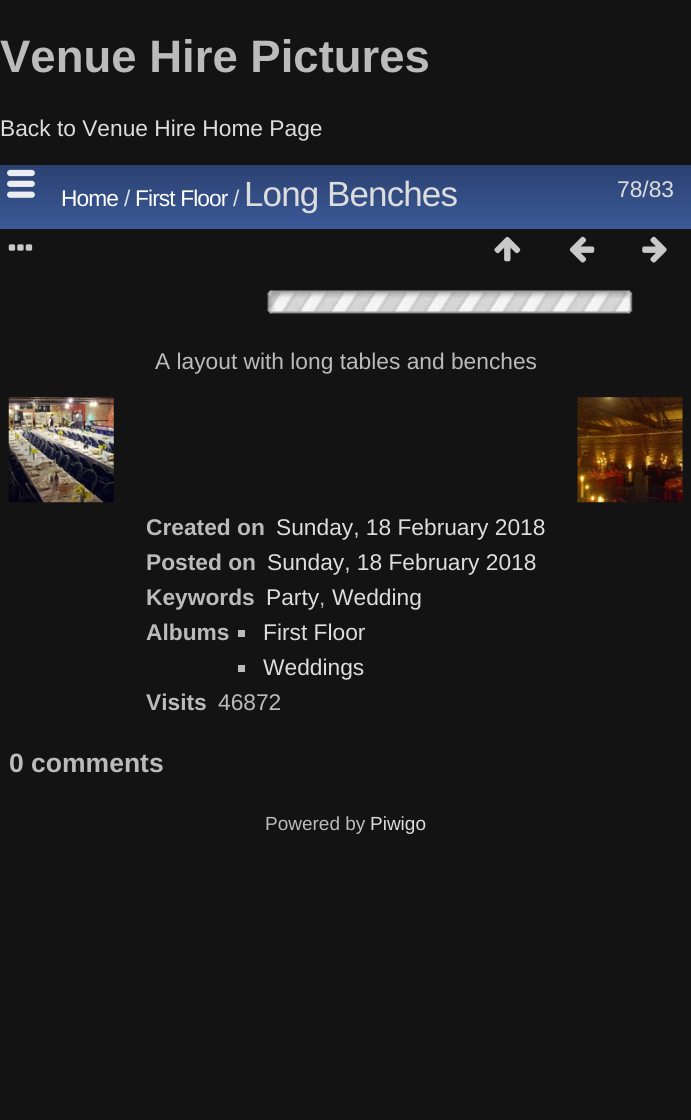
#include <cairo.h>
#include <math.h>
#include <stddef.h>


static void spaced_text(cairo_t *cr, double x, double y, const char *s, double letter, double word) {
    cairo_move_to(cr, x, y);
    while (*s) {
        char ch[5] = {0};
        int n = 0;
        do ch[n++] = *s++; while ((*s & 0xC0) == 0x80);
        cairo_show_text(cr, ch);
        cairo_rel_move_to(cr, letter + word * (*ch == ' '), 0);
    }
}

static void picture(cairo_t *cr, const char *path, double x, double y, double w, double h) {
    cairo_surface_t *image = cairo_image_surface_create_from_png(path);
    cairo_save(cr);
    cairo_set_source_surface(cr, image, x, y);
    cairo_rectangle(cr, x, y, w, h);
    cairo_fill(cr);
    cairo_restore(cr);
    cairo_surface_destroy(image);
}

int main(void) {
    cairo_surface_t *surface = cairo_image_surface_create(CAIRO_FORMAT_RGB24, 691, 1120);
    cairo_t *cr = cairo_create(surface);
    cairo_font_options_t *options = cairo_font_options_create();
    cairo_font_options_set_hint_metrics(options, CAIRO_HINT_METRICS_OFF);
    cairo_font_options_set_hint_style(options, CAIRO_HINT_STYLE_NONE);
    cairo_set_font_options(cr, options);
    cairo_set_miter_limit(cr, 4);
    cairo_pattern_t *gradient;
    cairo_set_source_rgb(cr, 0.078, 0.078, 0.078);
    cairo_paint(cr);
    cairo_select_font_face(cr, "Liberation Sans", CAIRO_FONT_SLANT_NORMAL, CAIRO_FONT_WEIGHT_BOLD);
    cairo_set_font_size(cr, 45.5);
    cairo_set_source_rgb(cr, 0.733, 0.733, 0.733);
    cairo_move_to(cr, 0, 72);
    cairo_show_text(cr, "Venue Hire Pictures");
    cairo_select_font_face(cr, "Liberation Sans", CAIRO_FONT_SLANT_NORMAL, CAIRO_FONT_WEIGHT_NORMAL);
    cairo_set_font_size(cr, 22.75);
    cairo_set_source_rgb(cr, 0.867, 0.867, 0.867);
    cairo_move_to(cr, 0, 136);
    cairo_show_text(cr, "Back to Venue Hire Home Page");
    gradient = cairo_pattern_create_linear(346, 164, 346, 229);
    cairo_pattern_add_color_stop_rgba(gradient, 0, 0.169, 0.255, 0.439, 1);
    cairo_pattern_add_color_stop_rgba(gradient, 1, 0.231, 0.349, 0.596, 1);
    cairo_set_source(cr, gradient);
    cairo_pattern_destroy(gradient);
    cairo_rectangle(cr, 0, 165, 691, 64);
    cairo_fill(cr);
    picture(cr, "img1.png", 7, 169, 28, 29);
    cairo_set_source_rgb(cr, 1, 1, 1);
    spaced_text(cr, 61, 206, "Home", -0.9, 0);
    cairo_set_source_rgb(cr, 0.867, 0.867, 0.867);
    spaced_text(cr, 124, 206, "/", -0.9, 0);
    cairo_set_source_rgb(cr, 1, 1, 1);
    spaced_text(cr, 135, 206, "First Floor", -0.9, 0);
    cairo_set_source_rgb(cr, 0.867, 0.867, 0.867);
    spaced_text(cr, 233, 206, "/", -0.9, 0);
    cairo_set_font_size(cr, 35);
    spaced_text(cr, 244, 206, "Long Benches", -0.9, 0);
    cairo_set_font_size(cr, 22.75);
    cairo_move_to(cr, 617, 197);
    cairo_show_text(cr, "78/83");
    picture(cr, "img2.png", 8, 244, 25, 7);
    picture(cr, "img3.png", 494, 236, 27, 26);
    picture(cr, "img4.png", 569, 236, 26, 27);
    picture(cr, "img5.png", 642, 236, 25, 27);
    picture(cr, "img6.png", 267, 290, 366, 24);
    cairo_set_source_rgb(cr, 0.733, 0.733, 0.733);
    cairo_move_to(cr, 155, 369);
    cairo_show_text(cr, "A layout with long tables and benches");
    picture(cr, "img7.png", 8, 397, 106, 106);
    picture(cr, "img8.png", 577, 397, 106, 106);
    cairo_select_font_face(cr, "Liberation Sans", CAIRO_FONT_SLANT_NORMAL, CAIRO_FONT_WEIGHT_BOLD);
    cairo_move_to(cr, 146, 535);
    cairo_show_text(cr, "Created on");
    cairo_select_font_face(cr, "Liberation Sans", CAIRO_FONT_SLANT_NORMAL, CAIRO_FONT_WEIGHT_NORMAL);
    cairo_set_source_rgb(cr, 0.867, 0.867, 0.867);
    cairo_move_to(cr, 276, 535);
    cairo_show_text(cr, "Sunday, 18 February 2018");
    cairo_select_font_face(cr, "Liberation Sans", CAIRO_FONT_SLANT_NORMAL, CAIRO_FONT_WEIGHT_BOLD);
    cairo_set_source_rgb(cr, 0.733, 0.733, 0.733);
    cairo_move_to(cr, 146, 570);
    cairo_show_text(cr, "Posted on");
    cairo_select_font_face(cr, "Liberation Sans", CAIRO_FONT_SLANT_NORMAL, CAIRO_FONT_WEIGHT_NORMAL);
    cairo_set_source_rgb(cr, 0.867, 0.867, 0.867);
    cairo_move_to(cr, 267, 570);
    cairo_show_text(cr, "Sunday, 18 February 2018");
    cairo_select_font_face(cr, "Liberation Sans", CAIRO_FONT_SLANT_NORMAL, CAIRO_FONT_WEIGHT_BOLD);
    cairo_set_source_rgb(cr, 0.733, 0.733, 0.733);
    cairo_move_to(cr, 146, 605);
    cairo_show_text(cr, "Keywords");
    cairo_select_font_face(cr, "Liberation Sans", CAIRO_FONT_SLANT_NORMAL, CAIRO_FONT_WEIGHT_NORMAL);
    cairo_set_source_rgb(cr, 0.867, 0.867, 0.867);
    cairo_move_to(cr, 266, 605);
    cairo_show_text(cr, "Party");
    cairo_set_source_rgb(cr, 0.733, 0.733, 0.733);
    cairo_move_to(cr, 319, 605);
    cairo_show_text(cr, ",");
    cairo_set_source_rgb(cr, 0.867, 0.867, 0.867);
    cairo_move_to(cr, 332, 605);
    cairo_show_text(cr, "Wedding");
    cairo_select_font_face(cr, "Liberation Sans", CAIRO_FONT_SLANT_NORMAL, CAIRO_FONT_WEIGHT_BOLD);
    cairo_set_source_rgb(cr, 0.733, 0.733, 0.733);
    cairo_move_to(cr, 146, 640);
    cairo_show_text(cr, "Albums");
    cairo_rectangle(cr, 238, 630, 7, 7);
    cairo_fill(cr);
    cairo_select_font_face(cr, "Liberation Sans", CAIRO_FONT_SLANT_NORMAL, CAIRO_FONT_WEIGHT_NORMAL);
    cairo_set_source_rgb(cr, 0.867, 0.867, 0.867);
    cairo_move_to(cr, 263, 640);
    cairo_show_text(cr, "First Floor");
    cairo_set_source_rgb(cr, 0.733, 0.733, 0.733);
    cairo_rectangle(cr, 238, 665, 7, 7);
    cairo_fill(cr);
    cairo_set_source_rgb(cr, 0.867, 0.867, 0.867);
    cairo_move_to(cr, 263, 675);
    cairo_show_text(cr, "Weddings");
    cairo_select_font_face(cr, "Liberation Sans", CAIRO_FONT_SLANT_NORMAL, CAIRO_FONT_WEIGHT_BOLD);
    cairo_set_source_rgb(cr, 0.733, 0.733, 0.733);
    cairo_move_to(cr, 146, 710);
    cairo_show_text(cr, "Visits");
    cairo_select_font_face(cr, "Liberation Sans", CAIRO_FONT_SLANT_NORMAL, CAIRO_FONT_WEIGHT_NORMAL);
    cairo_move_to(cr, 218, 710);
    cairo_show_text(cr, "46872");
    cairo_select_font_face(cr, "Liberation Sans", CAIRO_FONT_SLANT_NORMAL, CAIRO_FONT_WEIGHT_BOLD);
    cairo_set_font_size(cr, 26.5);
    cairo_move_to(cr, 9, 772);
    cairo_show_text(cr, "0 comments");
    cairo_select_font_face(cr, "Liberation Sans", CAIRO_FONT_SLANT_NORMAL, CAIRO_FONT_WEIGHT_NORMAL);
    cairo_set_font_size(cr, 19);
    cairo_move_to(cr, 265, 830);
    cairo_show_text(cr, "Powered by");
    cairo_set_source_rgb(cr, 0.867, 0.867, 0.867);
    cairo_move_to(cr, 370, 830);
    cairo_show_text(cr, "Piwigo");
    cairo_surface_write_to_png(surface, "page.png");
    cairo_font_options_destroy(options);
    cairo_destroy(cr);
    cairo_surface_destroy(surface);
    return 0;
}
